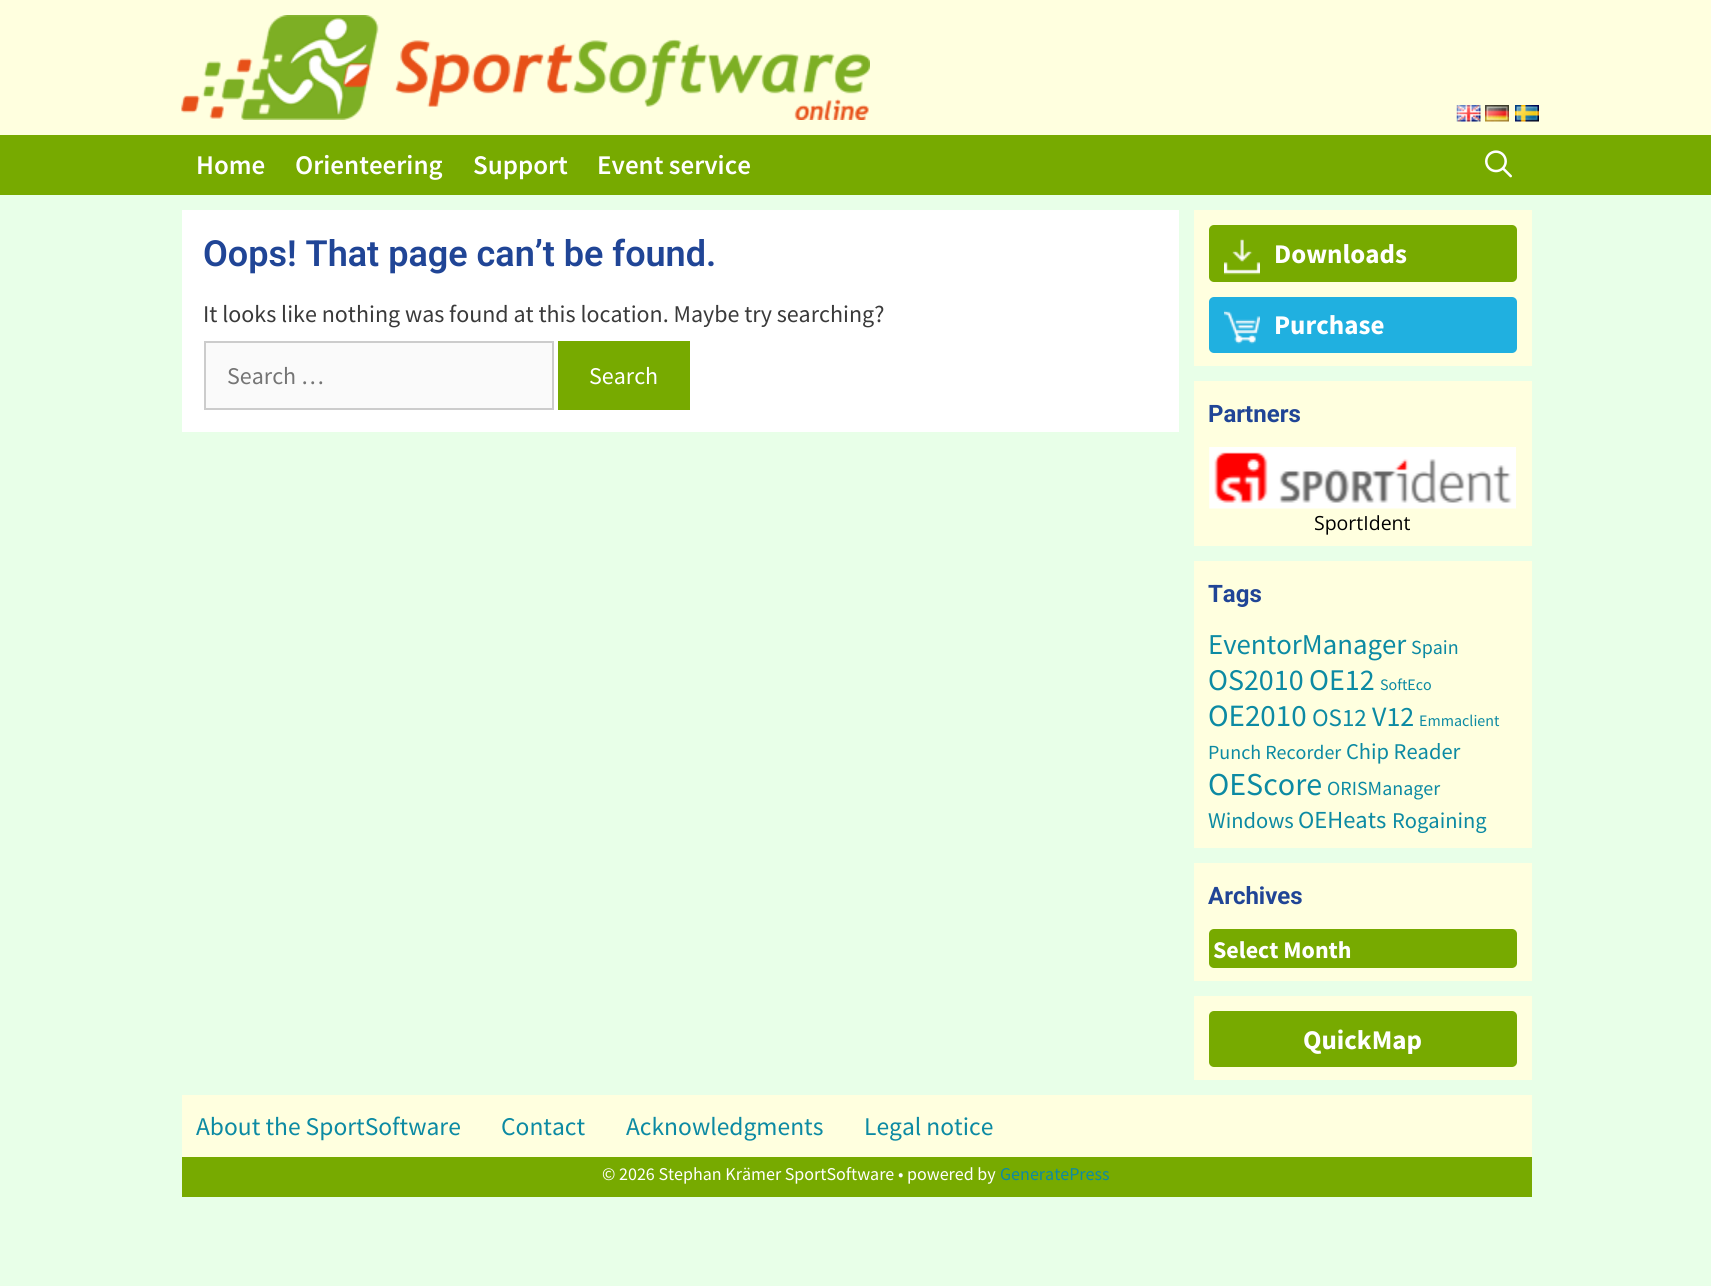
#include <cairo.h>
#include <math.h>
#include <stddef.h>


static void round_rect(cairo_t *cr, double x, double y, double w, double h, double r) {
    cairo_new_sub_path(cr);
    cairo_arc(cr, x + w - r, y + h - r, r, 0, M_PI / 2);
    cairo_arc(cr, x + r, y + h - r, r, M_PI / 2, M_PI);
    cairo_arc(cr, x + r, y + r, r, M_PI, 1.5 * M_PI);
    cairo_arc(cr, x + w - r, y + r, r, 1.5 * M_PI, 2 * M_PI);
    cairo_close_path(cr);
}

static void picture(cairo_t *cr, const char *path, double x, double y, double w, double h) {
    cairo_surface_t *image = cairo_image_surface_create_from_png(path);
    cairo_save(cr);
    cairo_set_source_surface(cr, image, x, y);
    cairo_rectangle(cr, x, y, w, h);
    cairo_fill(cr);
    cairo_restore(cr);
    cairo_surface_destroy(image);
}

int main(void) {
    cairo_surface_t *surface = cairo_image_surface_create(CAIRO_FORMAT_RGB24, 1711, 1286);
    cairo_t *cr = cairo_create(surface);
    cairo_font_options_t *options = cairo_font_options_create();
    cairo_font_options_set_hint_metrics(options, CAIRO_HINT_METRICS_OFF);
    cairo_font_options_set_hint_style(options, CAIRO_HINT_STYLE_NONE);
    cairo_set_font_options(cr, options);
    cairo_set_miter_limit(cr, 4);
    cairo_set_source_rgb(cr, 0.91, 1, 0.91);
    cairo_paint(cr);
    cairo_set_source_rgb(cr, 1, 1, 0.875);
    cairo_rectangle(cr, 0, 0, 1711, 135);
    cairo_fill(cr);
    picture(cr, "img1.png", 181, 15, 689, 105);
    picture(cr, "img2.png", 1456, 105, 25, 17);
    picture(cr, "img3.png", 1485, 105, 24, 17);
    picture(cr, "img4.png", 1515, 105, 24, 17);
    cairo_set_source_rgb(cr, 0.467, 0.667, 0);
    cairo_rectangle(cr, 0, 135, 1711, 60);
    cairo_fill(cr);
    cairo_select_font_face(cr, "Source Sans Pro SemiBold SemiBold", CAIRO_FONT_SLANT_NORMAL, CAIRO_FONT_WEIGHT_NORMAL);
    cairo_set_font_size(cr, 27);
    cairo_set_source_rgb(cr, 1, 1, 1);
    cairo_move_to(cr, 196, 174);
    cairo_show_text(cr, "Home");
    cairo_move_to(cr, 295, 174);
    cairo_show_text(cr, "Orienteering");
    cairo_move_to(cr, 473, 174);
    cairo_show_text(cr, "Support");
    cairo_move_to(cr, 597, 174);
    cairo_show_text(cr, "Event service");
    picture(cr, "img5.png", 1485, 150, 27, 28);
    cairo_rectangle(cr, 182, 210, 997, 222);
    cairo_fill(cr);
    cairo_select_font_face(cr, "Roboto SemiBold", CAIRO_FONT_SLANT_NORMAL, CAIRO_FONT_WEIGHT_NORMAL);
    cairo_set_font_size(cr, 36);
    cairo_set_source_rgb(cr, 0.125, 0.271, 0.588);
    cairo_move_to(cr, 203, 266);
    cairo_show_text(cr, "Oops! That page can’t be found.");
    cairo_select_font_face(cr, "Source Sans Pro", CAIRO_FONT_SLANT_NORMAL, CAIRO_FONT_WEIGHT_NORMAL);
    cairo_set_font_size(cr, 24);
    cairo_set_source_rgb(cr, 0.227, 0.227, 0.227);
    cairo_move_to(cr, 203, 322);
    cairo_show_text(cr, "It looks like nothing was found at this location. Maybe try searching?");
    cairo_set_source_rgb(cr, 0.98, 0.98, 0.98);
    cairo_rectangle(cr, 205, 342, 348, 67);
    cairo_fill_preserve(cr);
    cairo_set_source_rgb(cr, 0.8, 0.8, 0.8);
    cairo_stroke(cr);
    cairo_set_source_rgb(cr, 0.459, 0.459, 0.459);
    cairo_move_to(cr, 227, 384);
    cairo_show_text(cr, "Search …");
    cairo_set_source_rgb(cr, 0.467, 0.667, 0);
    cairo_rectangle(cr, 558, 341, 132, 69);
    cairo_fill(cr);
    cairo_set_source_rgb(cr, 1, 1, 1);
    cairo_move_to(cr, 589, 384);
    cairo_show_text(cr, "Search");
    cairo_set_source_rgb(cr, 1, 1, 0.875);
    cairo_rectangle(cr, 1194, 210, 338, 156);
    cairo_fill(cr);
    cairo_set_source_rgb(cr, 0.467, 0.667, 0);
    round_rect(cr, 1209, 225, 308, 57, 5);
    cairo_fill(cr);
    picture(cr, "img6.png", 1224, 238, 36, 37);
    cairo_select_font_face(cr, "Source Sans Pro", CAIRO_FONT_SLANT_NORMAL, CAIRO_FONT_WEIGHT_BOLD);
    cairo_set_font_size(cr, 27);
    cairo_set_source_rgb(cr, 1, 1, 1);
    cairo_move_to(cr, 1274, 263);
    cairo_show_text(cr, "Downloads");
    cairo_set_source_rgb(cr, 0.125, 0.69, 0.878);
    round_rect(cr, 1209, 297, 308, 56, 5);
    cairo_fill(cr);
    picture(cr, "img7.png", 1224, 310, 36, 34);
    cairo_set_source_rgb(cr, 1, 1, 1);
    cairo_move_to(cr, 1274, 334);
    cairo_show_text(cr, "Purchase");
    cairo_set_source_rgb(cr, 1, 1, 0.875);
    cairo_rectangle(cr, 1194, 381, 338, 165);
    cairo_fill(cr);
    cairo_select_font_face(cr, "Roboto", CAIRO_FONT_SLANT_NORMAL, CAIRO_FONT_WEIGHT_BOLD);
    cairo_set_font_size(cr, 24);
    cairo_set_source_rgb(cr, 0.125, 0.271, 0.588);
    cairo_move_to(cr, 1208, 422);
    cairo_show_text(cr, "Partners");
    picture(cr, "img8.png", 1209, 447, 307, 62);
    cairo_select_font_face(cr, "Open Sans", CAIRO_FONT_SLANT_NORMAL, CAIRO_FONT_WEIGHT_NORMAL);
    cairo_set_font_size(cr, 19.5);
    cairo_set_source_rgb(cr, 0, 0, 0);
    cairo_move_to(cr, 1314, 530);
    cairo_show_text(cr, "SportIdent");
    cairo_set_source_rgb(cr, 1, 1, 0.875);
    cairo_rectangle(cr, 1194, 561, 338, 287);
    cairo_fill(cr);
    cairo_select_font_face(cr, "Roboto", CAIRO_FONT_SLANT_NORMAL, CAIRO_FONT_WEIGHT_BOLD);
    cairo_set_font_size(cr, 24);
    cairo_set_source_rgb(cr, 0.125, 0.271, 0.588);
    cairo_move_to(cr, 1208, 602);
    cairo_show_text(cr, "Tags");
    cairo_select_font_face(cr, "Source Sans Pro", CAIRO_FONT_SLANT_NORMAL, CAIRO_FONT_WEIGHT_NORMAL);
    cairo_set_font_size(cr, 28.75);
    cairo_set_source_rgb(cr, 0.047, 0.541, 0.639);
    cairo_move_to(cr, 1208, 654);
    cairo_show_text(cr, "EventorManager");
    cairo_set_font_size(cr, 20);
    cairo_move_to(cr, 1411, 654);
    cairo_show_text(cr, "Spain");
    cairo_set_font_size(cr, 30);
    cairo_move_to(cr, 1208, 690);
    cairo_show_text(cr, "OS2010");
    cairo_move_to(cr, 1309, 690);
    cairo_show_text(cr, "OE12");
    cairo_set_font_size(cr, 16);
    cairo_move_to(cr, 1380, 690);
    cairo_show_text(cr, "SoftEco");
    cairo_set_font_size(cr, 31);
    cairo_move_to(cr, 1208, 726);
    cairo_show_text(cr, "OE2010");
    cairo_set_font_size(cr, 25);
    cairo_move_to(cr, 1312, 726);
    cairo_show_text(cr, "OS12");
    cairo_set_font_size(cr, 28);
    cairo_move_to(cr, 1372, 726);
    cairo_show_text(cr, "V12");
    cairo_set_font_size(cr, 16);
    cairo_move_to(cr, 1419, 726);
    cairo_show_text(cr, "Emmaclient");
    cairo_set_font_size(cr, 20);
    cairo_move_to(cr, 1208, 759);
    cairo_show_text(cr, "Punch Recorder");
    cairo_set_font_size(cr, 22.5);
    cairo_move_to(cr, 1346, 759);
    cairo_show_text(cr, "Chip Reader");
    cairo_set_font_size(cr, 32);
    cairo_move_to(cr, 1208, 795);
    cairo_show_text(cr, "OEScore");
    cairo_set_font_size(cr, 20);
    cairo_move_to(cr, 1327, 795);
    cairo_show_text(cr, "ORISManager");
    cairo_set_font_size(cr, 22.5);
    cairo_move_to(cr, 1208, 828);
    cairo_show_text(cr, "Windows");
    cairo_set_font_size(cr, 24.5);
    cairo_move_to(cr, 1298, 828);
    cairo_show_text(cr, "OEHeats");
    cairo_set_font_size(cr, 22.5);
    cairo_move_to(cr, 1392, 828);
    cairo_show_text(cr, "Rogaining");
    cairo_set_source_rgb(cr, 1, 1, 0.875);
    cairo_rectangle(cr, 1194, 863, 338, 118);
    cairo_fill(cr);
    cairo_select_font_face(cr, "Roboto", CAIRO_FONT_SLANT_NORMAL, CAIRO_FONT_WEIGHT_BOLD);
    cairo_set_font_size(cr, 24);
    cairo_set_source_rgb(cr, 0.125, 0.271, 0.588);
    cairo_move_to(cr, 1208, 904);
    cairo_show_text(cr, "Archives");
    cairo_set_source_rgb(cr, 0.467, 0.667, 0);
    round_rect(cr, 1209, 929, 308, 39, 5);
    cairo_fill(cr);
    cairo_select_font_face(cr, "Source Sans Pro", CAIRO_FONT_SLANT_NORMAL, CAIRO_FONT_WEIGHT_BOLD);
    cairo_set_source_rgb(cr, 1, 1, 1);
    cairo_move_to(cr, 1213, 958);
    cairo_show_text(cr, "Select Month");
    cairo_set_source_rgb(cr, 1, 1, 0.875);
    cairo_rectangle(cr, 1194, 996, 338, 84);
    cairo_fill(cr);
    cairo_set_source_rgb(cr, 0.467, 0.667, 0);
    round_rect(cr, 1209, 1011, 308, 56, 5);
    cairo_fill(cr);
    cairo_set_font_size(cr, 27);
    cairo_set_source_rgb(cr, 1, 1, 1);
    cairo_move_to(cr, 1303, 1049);
    cairo_show_text(cr, "QuickMap");
    cairo_set_source_rgb(cr, 1, 1, 0.875);
    cairo_rectangle(cr, 182, 1095, 1350, 62);
    cairo_fill(cr);
    cairo_select_font_face(cr, "Source Sans Pro", CAIRO_FONT_SLANT_NORMAL, CAIRO_FONT_WEIGHT_NORMAL);
    cairo_set_font_size(cr, 25.5);
    cairo_set_source_rgb(cr, 0.047, 0.541, 0.639);
    cairo_move_to(cr, 196, 1135);
    cairo_show_text(cr, "About the SportSoftware");
    cairo_move_to(cr, 501, 1135);
    cairo_show_text(cr, "Contact");
    cairo_move_to(cr, 626, 1135);
    cairo_show_text(cr, "Acknowledgments");
    cairo_move_to(cr, 864, 1135);
    cairo_show_text(cr, "Legal notice");
    cairo_set_source_rgb(cr, 0.467, 0.667, 0);
    cairo_rectangle(cr, 182, 1157, 1350, 40);
    cairo_fill(cr);
    cairo_set_font_size(cr, 18);
    cairo_set_source_rgb(cr, 1, 1, 1);
    cairo_move_to(cr, 602, 1180);
    cairo_show_text(cr, "© 2026 Stephan Krämer SportSoftware • powered by");
    cairo_set_source_rgb(cr, 0.047, 0.541, 0.639);
    cairo_move_to(cr, 1000, 1180);
    cairo_show_text(cr, "GeneratePress");
    cairo_surface_write_to_png(surface, "page.png");
    cairo_font_options_destroy(options);
    cairo_destroy(cr);
    cairo_surface_destroy(surface);
    return 0;
}
